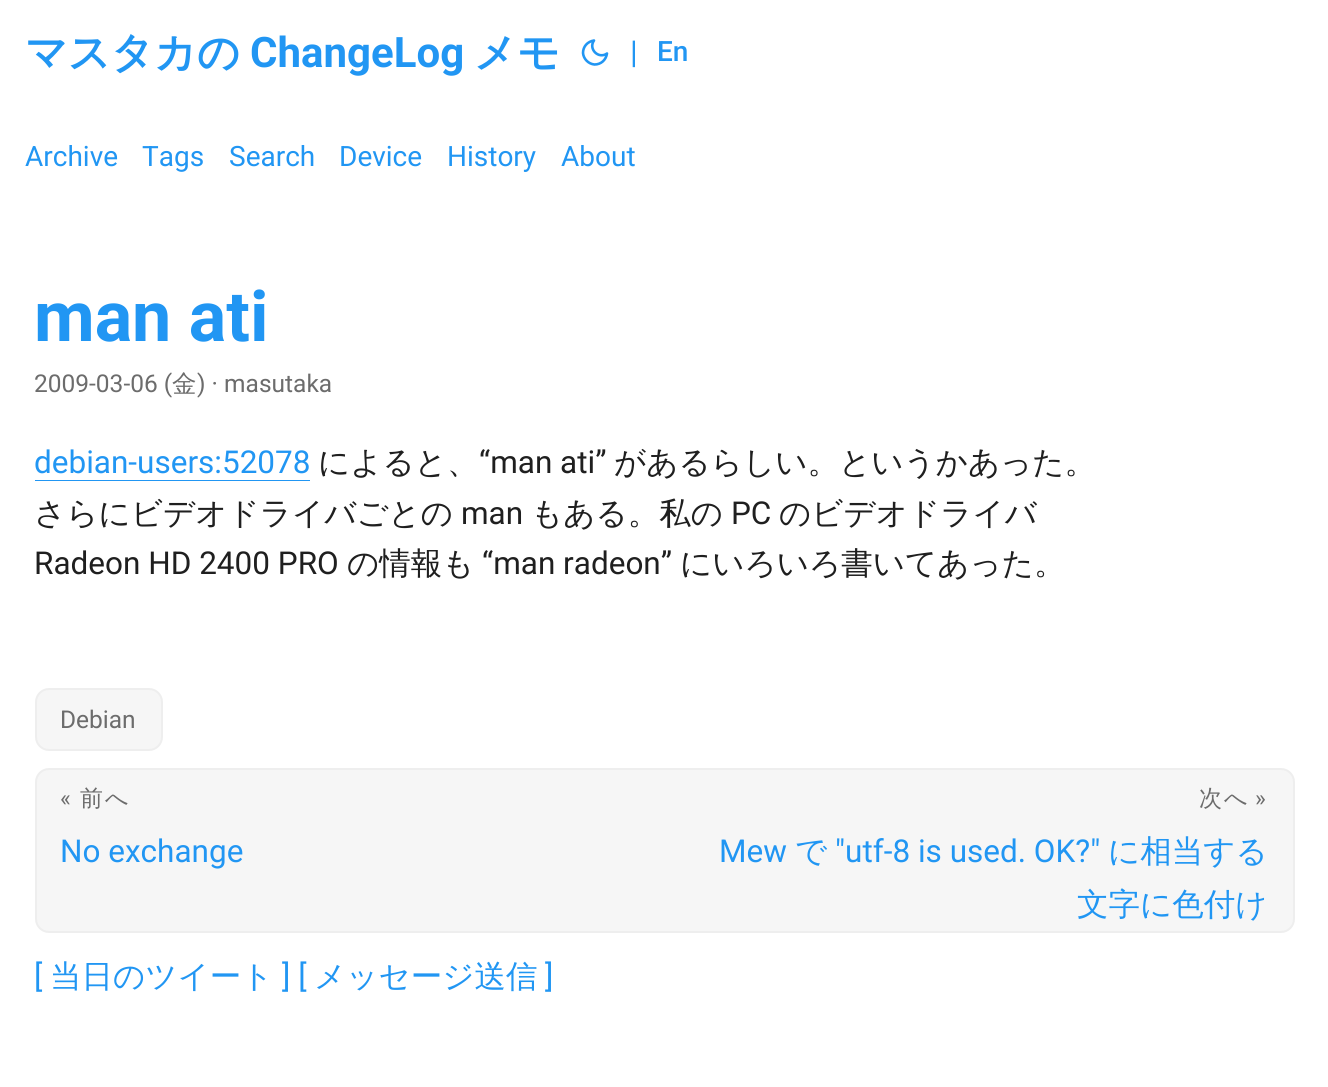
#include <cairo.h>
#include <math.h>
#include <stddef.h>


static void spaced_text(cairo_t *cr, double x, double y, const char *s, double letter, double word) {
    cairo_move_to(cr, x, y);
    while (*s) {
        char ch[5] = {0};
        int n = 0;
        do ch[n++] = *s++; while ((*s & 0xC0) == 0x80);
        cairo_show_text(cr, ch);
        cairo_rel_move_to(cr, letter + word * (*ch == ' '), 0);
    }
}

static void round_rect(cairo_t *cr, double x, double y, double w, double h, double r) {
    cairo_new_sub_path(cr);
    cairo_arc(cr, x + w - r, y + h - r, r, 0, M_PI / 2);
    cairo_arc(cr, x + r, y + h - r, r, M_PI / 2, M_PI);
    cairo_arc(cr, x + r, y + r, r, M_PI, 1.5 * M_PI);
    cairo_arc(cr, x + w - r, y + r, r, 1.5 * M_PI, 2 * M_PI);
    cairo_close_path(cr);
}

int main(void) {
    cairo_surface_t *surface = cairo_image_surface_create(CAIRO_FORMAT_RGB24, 1328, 1087);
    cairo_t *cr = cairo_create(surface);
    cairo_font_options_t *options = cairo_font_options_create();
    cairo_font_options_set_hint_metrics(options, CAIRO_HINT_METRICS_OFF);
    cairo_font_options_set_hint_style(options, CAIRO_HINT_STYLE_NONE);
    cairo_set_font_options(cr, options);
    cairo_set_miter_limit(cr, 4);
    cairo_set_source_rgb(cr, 1, 1, 1);
    cairo_paint(cr);
    cairo_select_font_face(cr, "WenQuanYi Zen Hei", CAIRO_FONT_SLANT_NORMAL, CAIRO_FONT_WEIGHT_BOLD);
    cairo_set_font_size(cr, 42);
    cairo_set_source_rgb(cr, 0.129, 0.588, 0.953);
    cairo_move_to(cr, 25, 67);
    cairo_show_text(cr, "マスタカの");
    cairo_select_font_face(cr, "Roboto", CAIRO_FONT_SLANT_NORMAL, CAIRO_FONT_WEIGHT_BOLD);
    cairo_move_to(cr, 250, 67);
    cairo_show_text(cr, "ChangeLog");
    cairo_select_font_face(cr, "WenQuanYi Zen Hei", CAIRO_FONT_SLANT_NORMAL, CAIRO_FONT_WEIGHT_BOLD);
    cairo_move_to(cr, 474, 67);
    cairo_show_text(cr, "メモ");
    cairo_new_path(cr);
    cairo_move_to(cr, 607, 53.5);
    cairo_curve_to(cr, 606, 60, 601, 64.5, 594.5, 64.5);
    cairo_curve_to(cr, 588.5, 64, 583.5, 59, 583, 53);
    cairo_curve_to(cr, 583, 46.5, 587.5, 41.5, 594, 40.5);
    cairo_curve_to(cr, 588, 49, 598.5, 59.5, 607, 53.5);
    cairo_close_path(cr);
    cairo_set_line_width(cr, 2.6);
    cairo_set_line_cap(cr, CAIRO_LINE_CAP_ROUND);
    cairo_set_line_join(cr, CAIRO_LINE_JOIN_ROUND);
    cairo_stroke(cr);
    cairo_select_font_face(cr, "Roboto", CAIRO_FONT_SLANT_NORMAL, CAIRO_FONT_WEIGHT_NORMAL);
    cairo_set_font_size(cr, 31.5);
    cairo_move_to(cr, 630, 63);
    cairo_show_text(cr, "|");
    cairo_select_font_face(cr, "Roboto Medium", CAIRO_FONT_SLANT_NORMAL, CAIRO_FONT_WEIGHT_NORMAL);
    cairo_set_font_size(cr, 28);
    cairo_move_to(cr, 657, 61);
    cairo_show_text(cr, "En");
    cairo_select_font_face(cr, "Roboto", CAIRO_FONT_SLANT_NORMAL, CAIRO_FONT_WEIGHT_NORMAL);
    cairo_move_to(cr, 25, 166);
    cairo_show_text(cr, "Archive");
    cairo_move_to(cr, 142, 166);
    cairo_show_text(cr, "Tags");
    cairo_move_to(cr, 229, 166);
    cairo_show_text(cr, "Search");
    cairo_move_to(cr, 339, 166);
    cairo_show_text(cr, "Device");
    cairo_move_to(cr, 447, 166);
    cairo_show_text(cr, "History");
    cairo_move_to(cr, 561, 166);
    cairo_show_text(cr, "About");
    cairo_select_font_face(cr, "Roboto", CAIRO_FONT_SLANT_NORMAL, CAIRO_FONT_WEIGHT_BOLD);
    cairo_set_font_size(cr, 70);
    cairo_move_to(cr, 34, 341);
    cairo_show_text(cr, "man ati");
    cairo_select_font_face(cr, "Roboto", CAIRO_FONT_SLANT_NORMAL, CAIRO_FONT_WEIGHT_NORMAL);
    cairo_set_font_size(cr, 24.5);
    cairo_set_source_rgb(cr, 0.424, 0.424, 0.424);
    cairo_move_to(cr, 34, 392);
    cairo_show_text(cr, "2009-03-06 (");
    cairo_select_font_face(cr, "WenQuanYi Zen Hei Medium", CAIRO_FONT_SLANT_NORMAL, CAIRO_FONT_WEIGHT_NORMAL);
    cairo_move_to(cr, 172, 392);
    cairo_show_text(cr, "金");
    cairo_select_font_face(cr, "Roboto", CAIRO_FONT_SLANT_NORMAL, CAIRO_FONT_WEIGHT_NORMAL);
    cairo_move_to(cr, 197, 392);
    cairo_show_text(cr, ") · masutaka");
    cairo_set_font_size(cr, 31.5);
    cairo_set_source_rgb(cr, 0.129, 0.588, 0.953);
    cairo_move_to(cr, 34, 473);
    cairo_show_text(cr, "debian-users:52078");
    cairo_new_path(cr);
    cairo_move_to(cr, 35, 480);
    cairo_line_to(cr, 35, 481);
    cairo_line_to(cr, 310, 481);
    cairo_line_to(cr, 310, 445);
    cairo_line_to(cr, 310, 480);
    cairo_close_path(cr);
    cairo_fill(cr);
    cairo_select_font_face(cr, "WenQuanYi Zen Hei Medium", CAIRO_FONT_SLANT_NORMAL, CAIRO_FONT_WEIGHT_NORMAL);
    cairo_set_source_rgb(cr, 0.122, 0.122, 0.122);
    cairo_move_to(cr, 318, 473);
    cairo_show_text(cr, "によると、");
    cairo_select_font_face(cr, "Roboto", CAIRO_FONT_SLANT_NORMAL, CAIRO_FONT_WEIGHT_NORMAL);
    cairo_move_to(cr, 479, 473);
    cairo_show_text(cr, "“man ati”");
    cairo_select_font_face(cr, "WenQuanYi Zen Hei Medium", CAIRO_FONT_SLANT_NORMAL, CAIRO_FONT_WEIGHT_NORMAL);
    cairo_move_to(cr, 614, 473);
    cairo_show_text(cr, "があるらしい。というかあった。");
    cairo_move_to(cr, 34, 524);
    cairo_show_text(cr, "さらにビデオドライバごとの");
    cairo_select_font_face(cr, "Roboto", CAIRO_FONT_SLANT_NORMAL, CAIRO_FONT_WEIGHT_NORMAL);
    cairo_move_to(cr, 461, 524);
    cairo_show_text(cr, "man");
    cairo_select_font_face(cr, "WenQuanYi Zen Hei Medium", CAIRO_FONT_SLANT_NORMAL, CAIRO_FONT_WEIGHT_NORMAL);
    cairo_move_to(cr, 531, 524);
    cairo_show_text(cr, "もある。私の");
    cairo_select_font_face(cr, "Roboto", CAIRO_FONT_SLANT_NORMAL, CAIRO_FONT_WEIGHT_NORMAL);
    cairo_move_to(cr, 731, 524);
    cairo_show_text(cr, "PC");
    cairo_select_font_face(cr, "WenQuanYi Zen Hei Medium", CAIRO_FONT_SLANT_NORMAL, CAIRO_FONT_WEIGHT_NORMAL);
    cairo_move_to(cr, 779, 524);
    cairo_show_text(cr, "のビデオドライバ");
    cairo_select_font_face(cr, "Roboto", CAIRO_FONT_SLANT_NORMAL, CAIRO_FONT_WEIGHT_NORMAL);
    cairo_move_to(cr, 34, 574);
    cairo_show_text(cr, "Radeon HD 2400 PRO");
    cairo_select_font_face(cr, "WenQuanYi Zen Hei Medium", CAIRO_FONT_SLANT_NORMAL, CAIRO_FONT_WEIGHT_NORMAL);
    cairo_move_to(cr, 347, 574);
    cairo_show_text(cr, "の情報も");
    cairo_select_font_face(cr, "Roboto", CAIRO_FONT_SLANT_NORMAL, CAIRO_FONT_WEIGHT_NORMAL);
    cairo_move_to(cr, 482, 574);
    cairo_show_text(cr, "“man radeon”");
    cairo_select_font_face(cr, "WenQuanYi Zen Hei Medium", CAIRO_FONT_SLANT_NORMAL, CAIRO_FONT_WEIGHT_NORMAL);
    cairo_move_to(cr, 680, 574);
    cairo_show_text(cr, "にいろいろ書いてあった。");
    cairo_set_source_rgb(cr, 0.961, 0.961, 0.961);
    round_rect(cr, 36, 689, 126, 61, 13);
    cairo_fill_preserve(cr);
    cairo_set_source_rgb(cr, 0.933, 0.933, 0.933);
    cairo_set_line_width(cr, 2);
    cairo_set_line_cap(cr, CAIRO_LINE_CAP_BUTT);
    cairo_set_line_join(cr, CAIRO_LINE_JOIN_MITER);
    cairo_stroke(cr);
    cairo_select_font_face(cr, "Roboto", CAIRO_FONT_SLANT_NORMAL, CAIRO_FONT_WEIGHT_NORMAL);
    cairo_set_font_size(cr, 24.5);
    cairo_set_source_rgb(cr, 0.424, 0.424, 0.424);
    cairo_move_to(cr, 60, 728);
    cairo_show_text(cr, "Debian");
    cairo_set_source_rgb(cr, 0.961, 0.961, 0.961);
    round_rect(cr, 36, 769, 1258, 163, 13);
    cairo_fill_preserve(cr);
    cairo_set_source_rgb(cr, 0.933, 0.933, 0.933);
    cairo_stroke(cr);
    cairo_set_font_size(cr, 23);
    cairo_set_source_rgb(cr, 0.424, 0.424, 0.424);
    spaced_text(cr, 60, 806, "«", 2, 0);
    cairo_select_font_face(cr, "WenQuanYi Zen Hei Medium", CAIRO_FONT_SLANT_NORMAL, CAIRO_FONT_WEIGHT_NORMAL);
    spaced_text(cr, 80, 806, "前へ", 2, 0);
    cairo_select_font_face(cr, "Roboto", CAIRO_FONT_SLANT_NORMAL, CAIRO_FONT_WEIGHT_NORMAL);
    cairo_set_font_size(cr, 31.5);
    cairo_set_source_rgb(cr, 0.129, 0.588, 0.953);
    cairo_move_to(cr, 60, 862);
    cairo_show_text(cr, "No exchange");
    cairo_select_font_face(cr, "WenQuanYi Zen Hei Medium", CAIRO_FONT_SLANT_NORMAL, CAIRO_FONT_WEIGHT_NORMAL);
    cairo_set_font_size(cr, 23);
    cairo_set_source_rgb(cr, 0.424, 0.424, 0.424);
    spaced_text(cr, 1199, 806, "次へ", 2, 0);
    cairo_select_font_face(cr, "Roboto", CAIRO_FONT_SLANT_NORMAL, CAIRO_FONT_WEIGHT_NORMAL);
    spaced_text(cr, 1255, 806, "»", 2, 0);
    cairo_set_font_size(cr, 31.5);
    cairo_set_source_rgb(cr, 0.129, 0.588, 0.953);
    cairo_move_to(cr, 719, 862);
    cairo_show_text(cr, "Mew");
    cairo_select_font_face(cr, "WenQuanYi Zen Hei Medium", CAIRO_FONT_SLANT_NORMAL, CAIRO_FONT_WEIGHT_NORMAL);
    cairo_move_to(cr, 795, 862);
    cairo_show_text(cr, "で");
    cairo_select_font_face(cr, "Roboto", CAIRO_FONT_SLANT_NORMAL, CAIRO_FONT_WEIGHT_NORMAL);
    cairo_move_to(cr, 835, 862);
    cairo_show_text(cr, "\"utf-8 is used. OK?\"");
    cairo_select_font_face(cr, "WenQuanYi Zen Hei Medium", CAIRO_FONT_SLANT_NORMAL, CAIRO_FONT_WEIGHT_NORMAL);
    cairo_move_to(cr, 1108, 862);
    cairo_show_text(cr, "に相当する");
    cairo_move_to(cr, 1077, 915);
    cairo_show_text(cr, "文字に色付け");
    cairo_select_font_face(cr, "Roboto", CAIRO_FONT_SLANT_NORMAL, CAIRO_FONT_WEIGHT_NORMAL);
    cairo_move_to(cr, 34, 987);
    cairo_show_text(cr, "[");
    cairo_select_font_face(cr, "WenQuanYi Zen Hei Medium", CAIRO_FONT_SLANT_NORMAL, CAIRO_FONT_WEIGHT_NORMAL);
    cairo_move_to(cr, 50, 987);
    cairo_show_text(cr, "当日のツイート");
    cairo_select_font_face(cr, "Roboto", CAIRO_FONT_SLANT_NORMAL, CAIRO_FONT_WEIGHT_NORMAL);
    cairo_move_to(cr, 282, 987);
    cairo_show_text(cr, "] [");
    cairo_select_font_face(cr, "WenQuanYi Zen Hei Medium", CAIRO_FONT_SLANT_NORMAL, CAIRO_FONT_WEIGHT_NORMAL);
    cairo_move_to(cr, 314, 987);
    cairo_show_text(cr, "メッセージ送信");
    cairo_select_font_face(cr, "Roboto", CAIRO_FONT_SLANT_NORMAL, CAIRO_FONT_WEIGHT_NORMAL);
    cairo_move_to(cr, 545, 987);
    cairo_show_text(cr, "]");
    cairo_surface_write_to_png(surface, "page.png");
    cairo_font_options_destroy(options);
    cairo_destroy(cr);
    cairo_surface_destroy(surface);
    return 0;
}
